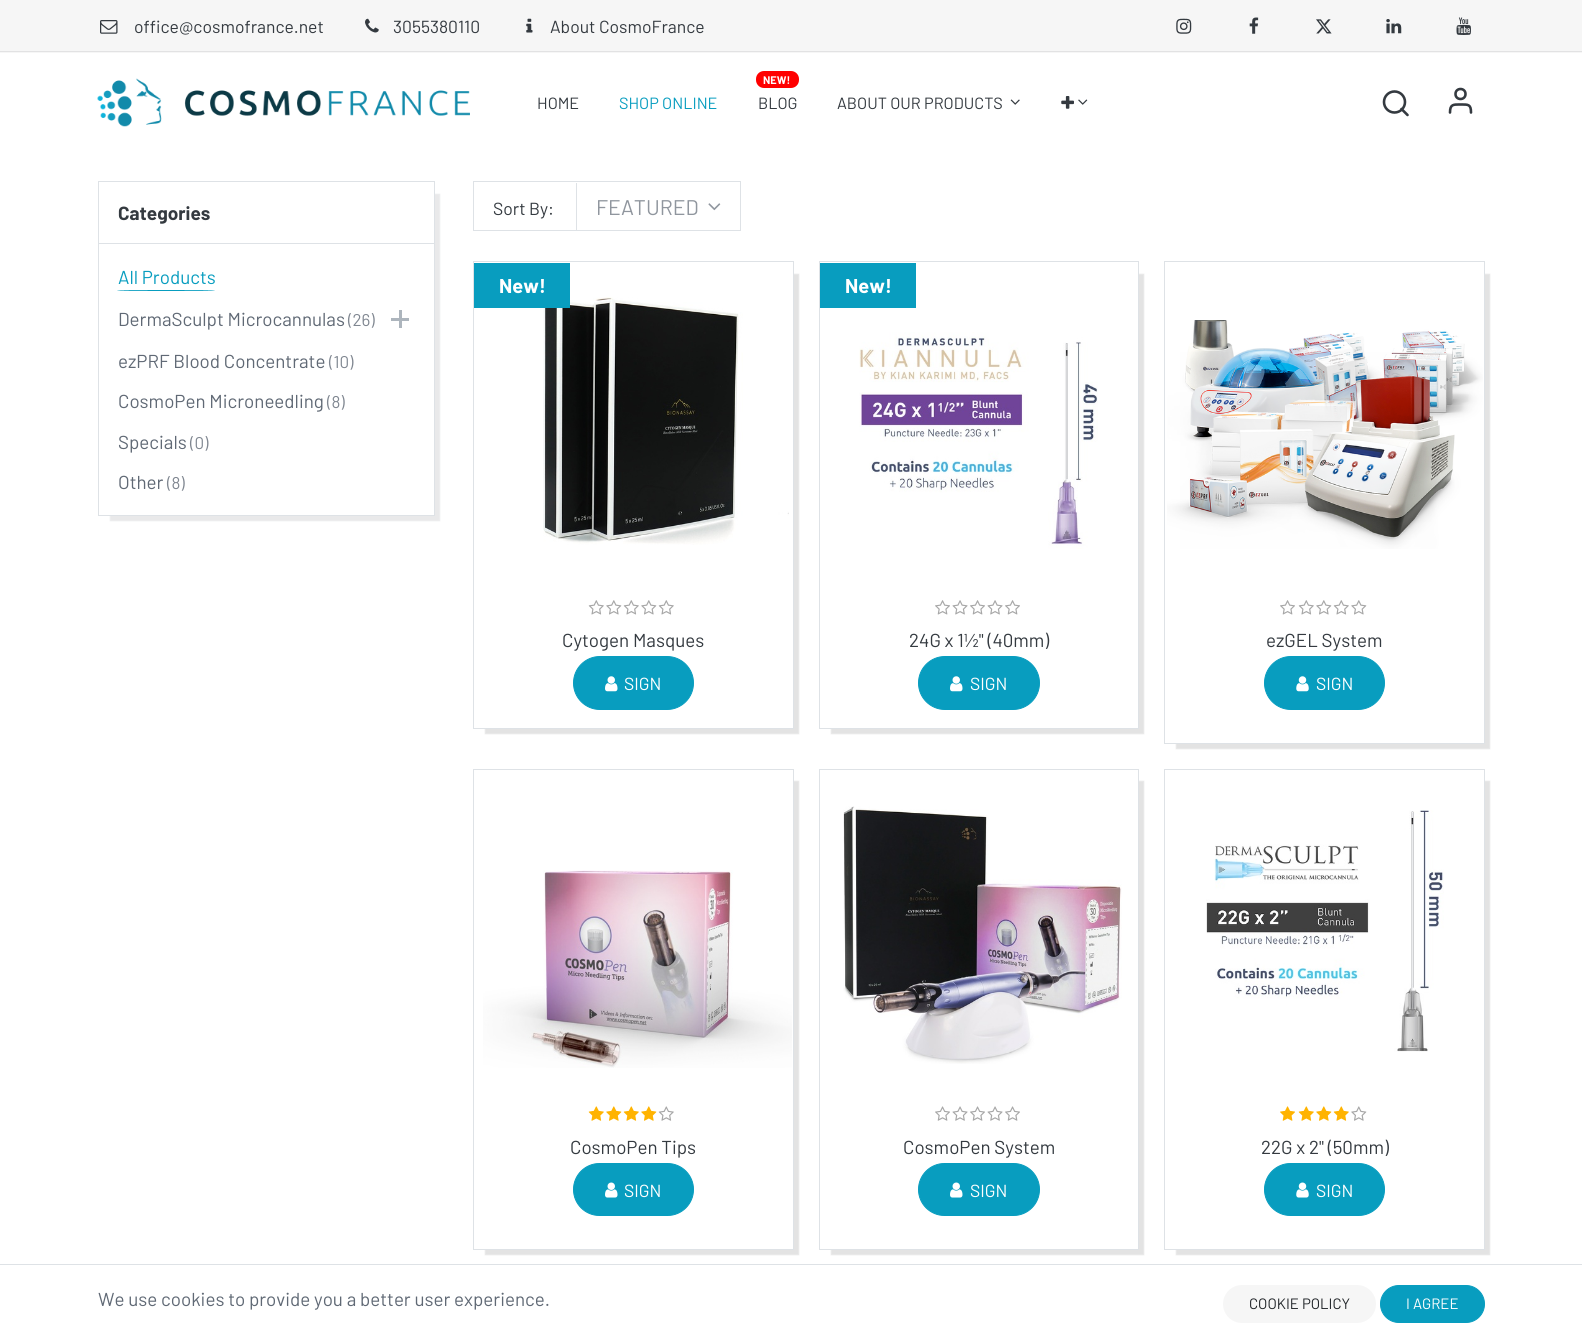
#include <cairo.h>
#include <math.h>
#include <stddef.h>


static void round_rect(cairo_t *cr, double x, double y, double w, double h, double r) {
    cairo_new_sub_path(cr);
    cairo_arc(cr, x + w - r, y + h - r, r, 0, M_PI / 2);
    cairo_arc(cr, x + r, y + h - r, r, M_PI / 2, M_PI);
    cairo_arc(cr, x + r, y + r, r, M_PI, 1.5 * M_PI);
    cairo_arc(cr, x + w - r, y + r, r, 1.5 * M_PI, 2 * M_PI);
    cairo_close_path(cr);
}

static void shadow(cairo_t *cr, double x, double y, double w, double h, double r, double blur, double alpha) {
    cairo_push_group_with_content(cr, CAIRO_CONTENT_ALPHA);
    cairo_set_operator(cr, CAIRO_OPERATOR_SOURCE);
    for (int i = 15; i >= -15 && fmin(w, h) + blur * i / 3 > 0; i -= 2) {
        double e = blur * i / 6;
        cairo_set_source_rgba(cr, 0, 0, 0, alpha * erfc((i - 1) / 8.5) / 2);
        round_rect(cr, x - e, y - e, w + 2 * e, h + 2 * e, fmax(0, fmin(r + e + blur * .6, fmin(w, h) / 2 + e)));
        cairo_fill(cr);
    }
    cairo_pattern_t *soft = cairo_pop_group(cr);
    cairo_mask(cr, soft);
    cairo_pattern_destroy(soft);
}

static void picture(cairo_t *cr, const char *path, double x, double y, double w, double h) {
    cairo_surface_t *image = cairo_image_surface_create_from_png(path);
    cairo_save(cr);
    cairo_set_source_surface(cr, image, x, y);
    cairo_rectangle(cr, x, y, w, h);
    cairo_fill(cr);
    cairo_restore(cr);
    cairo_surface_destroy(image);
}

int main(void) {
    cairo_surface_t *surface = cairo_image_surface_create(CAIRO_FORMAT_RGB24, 1582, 1332);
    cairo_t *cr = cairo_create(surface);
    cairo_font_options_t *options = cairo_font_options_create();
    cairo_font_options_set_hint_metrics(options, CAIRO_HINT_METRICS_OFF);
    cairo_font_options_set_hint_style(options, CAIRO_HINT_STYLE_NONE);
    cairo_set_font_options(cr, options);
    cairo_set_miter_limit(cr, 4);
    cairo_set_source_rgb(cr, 1, 1, 1);
    cairo_paint(cr);
    cairo_set_source_rgb(cr, 0.961, 0.961, 0.961);
    cairo_rectangle(cr, 0, 0, 1582, 53);
    cairo_fill(cr);
    cairo_set_source_rgb(cr, 0.886, 0.886, 0.89);
    cairo_rectangle(cr, 0, 51, 1582, 1);
    cairo_fill(cr);
    picture(cr, "img1.png", 100, 20, 18, 14);
    cairo_select_font_face(cr, "Barlow", CAIRO_FONT_SLANT_NORMAL, CAIRO_FONT_WEIGHT_NORMAL);
    cairo_set_font_size(cr, 17.5);
    cairo_set_source_rgb(cr, 0.204, 0.227, 0.251);
    cairo_move_to(cr, 134, 33);
    cairo_show_text(cr, "office@cosmofrance.net");
    picture(cr, "img2.png", 365, 18, 14, 15);
    cairo_move_to(cr, 393, 33);
    cairo_show_text(cr, "3055380110");
    picture(cr, "img3.png", 526, 18, 7, 15);
    cairo_move_to(cr, 550, 33);
    cairo_show_text(cr, "About CosmoFrance");
    picture(cr, "img4.png", 1176, 18, 16, 16);
    picture(cr, "img5.png", 1249, 17, 10, 17);
    picture(cr, "img6.png", 1316, 19, 16, 15);
    picture(cr, "img7.png", 1386, 19, 16, 15);
    picture(cr, "img8.png", 1456, 17, 15, 18);
    picture(cr, "img9.png", 97, 78, 373, 49);
    cairo_set_font_size(cr, 16.25);
    cairo_move_to(cr, 537, 109);
    cairo_show_text(cr, "HOME");
    cairo_set_source_rgb(cr, 0.035, 0.616, 0.749);
    cairo_move_to(cr, 619, 109);
    cairo_show_text(cr, "SHOP ONLINE");
    cairo_set_source_rgb(cr, 1, 0, 0);
    round_rect(cr, 756, 71, 43, 17, 8);
    cairo_fill(cr);
    cairo_select_font_face(cr, "Barlow", CAIRO_FONT_SLANT_NORMAL, CAIRO_FONT_WEIGHT_BOLD);
    cairo_set_font_size(cr, 11);
    cairo_set_source_rgb(cr, 1, 1, 1);
    cairo_move_to(cr, 763, 84);
    cairo_show_text(cr, "NEW!");
    cairo_select_font_face(cr, "Barlow", CAIRO_FONT_SLANT_NORMAL, CAIRO_FONT_WEIGHT_NORMAL);
    cairo_set_font_size(cr, 16.25);
    cairo_set_source_rgb(cr, 0.204, 0.227, 0.251);
    cairo_move_to(cr, 758, 109);
    cairo_show_text(cr, "BLOG");
    cairo_move_to(cr, 837, 109);
    cairo_show_text(cr, "ABOUT OUR PRODUCTS");
    picture(cr, "img10.png", 1010, 99, 10, 6);
    picture(cr, "img11.png", 1061, 96, 13, 13);
    picture(cr, "img12.png", 1078, 99, 10, 6);
    cairo_arc(cr, 1394.5, 102, 10.5, 0, 2 * M_PI);
    cairo_set_line_width(cr, 2.6);
    cairo_stroke(cr);
    cairo_new_path(cr);
    cairo_move_to(cr, 1407.5, 115);
    cairo_line_to(cr, 1401.5, 109);
    cairo_set_line_cap(cr, CAIRO_LINE_CAP_ROUND);
    cairo_set_line_join(cr, CAIRO_LINE_JOIN_ROUND);
    cairo_stroke(cr);
    cairo_new_path(cr);
    cairo_move_to(cr, 1471, 112.5);
    cairo_curve_to(cr, 1471, 104, 1468, 104.5, 1460.5, 104.5);
    cairo_curve_to(cr, 1453.5, 104.5, 1450, 104, 1450, 112.5);
    cairo_stroke(cr);
    cairo_arc(cr, 1460.5, 94, 5, 0, 2 * M_PI);
    cairo_set_line_cap(cr, CAIRO_LINE_CAP_BUTT);
    cairo_set_line_join(cr, CAIRO_LINE_JOIN_MITER);
    cairo_stroke(cr);
    cairo_save(cr);
    cairo_set_fill_rule(cr, CAIRO_FILL_RULE_EVEN_ODD);
    cairo_new_path(cr);
    cairo_move_to(cr, 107, 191);
    cairo_line_to(cr, 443, 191);
    cairo_line_to(cr, 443, 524);
    cairo_line_to(cr, 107, 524);
    cairo_close_path(cr);
    cairo_move_to(cr, 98, 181);
    cairo_line_to(cr, 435, 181);
    cairo_line_to(cr, 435, 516);
    cairo_line_to(cr, 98, 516);
    cairo_close_path(cr);
    cairo_clip(cr);
    cairo_set_source_rgb(cr, 0.204, 0.227, 0.251);
    shadow(cr, 110, 194, 330, 327, 0, 0.5, 0.11);
    cairo_restore(cr);
    cairo_rectangle(cr, 98.5, 181.5, 336, 334);
    cairo_set_source_rgb(cr, 0.871, 0.886, 0.902);
    cairo_set_line_width(cr, 1);
    cairo_stroke(cr);
    cairo_rectangle(cr, 99, 243, 335, 1);
    cairo_fill(cr);
    cairo_select_font_face(cr, "Barlow", CAIRO_FONT_SLANT_NORMAL, CAIRO_FONT_WEIGHT_BOLD);
    cairo_set_font_size(cr, 19);
    cairo_set_source_rgb(cr, 0.204, 0.227, 0.251);
    cairo_move_to(cr, 118, 220);
    cairo_show_text(cr, "Categories");
    cairo_select_font_face(cr, "Barlow", CAIRO_FONT_SLANT_NORMAL, CAIRO_FONT_WEIGHT_NORMAL);
    cairo_set_font_size(cr, 18.75);
    cairo_set_source_rgb(cr, 0.035, 0.616, 0.749);
    cairo_move_to(cr, 118, 284);
    cairo_show_text(cr, "All Products");
    cairo_new_path(cr);
    cairo_move_to(cr, 166, 290);
    cairo_curve_to(cr, 193, 290, 215, 290, 215, 290.5);
    cairo_curve_to(cr, 215, 291, 193, 291, 166, 291);
    cairo_curve_to(cr, 139, 291, 117, 291, 117, 290.5);
    cairo_curve_to(cr, 117, 290, 139, 290, 166, 290);
    cairo_close_path(cr);
    cairo_fill(cr);
    cairo_set_source_rgb(cr, 0.376, 0.412, 0.459);
    cairo_move_to(cr, 118, 326);
    cairo_show_text(cr, "DermaSculpt Microcannulas");
    cairo_set_font_size(cr, 17);
    cairo_set_source_rgb(cr, 0.502, 0.529, 0.569);
    cairo_move_to(cr, 348, 326);
    cairo_show_text(cr, "(26)");
    cairo_set_source_rgb(cr, 0.678, 0.71, 0.741);
    cairo_rectangle(cr, 399, 310, 3, 18);
    cairo_fill(cr);
    cairo_rectangle(cr, 391, 318, 18, 3);
    cairo_fill(cr);
    cairo_set_font_size(cr, 18.75);
    cairo_set_source_rgb(cr, 0.376, 0.412, 0.459);
    cairo_move_to(cr, 118, 368);
    cairo_show_text(cr, "ezPRF Blood Concentrate");
    cairo_set_font_size(cr, 17);
    cairo_set_source_rgb(cr, 0.502, 0.529, 0.569);
    cairo_move_to(cr, 329, 368);
    cairo_show_text(cr, "(10)");
    cairo_set_font_size(cr, 18.75);
    cairo_set_source_rgb(cr, 0.376, 0.412, 0.459);
    cairo_move_to(cr, 118, 408);
    cairo_show_text(cr, "CosmoPen Microneedling");
    cairo_set_font_size(cr, 17);
    cairo_set_source_rgb(cr, 0.502, 0.529, 0.569);
    cairo_move_to(cr, 327, 408);
    cairo_show_text(cr, "(8)");
    cairo_set_font_size(cr, 18.75);
    cairo_set_source_rgb(cr, 0.376, 0.412, 0.459);
    cairo_move_to(cr, 118, 449);
    cairo_show_text(cr, "Specials");
    cairo_set_font_size(cr, 17);
    cairo_set_source_rgb(cr, 0.502, 0.529, 0.569);
    cairo_move_to(cr, 190, 449);
    cairo_show_text(cr, "(0)");
    cairo_set_font_size(cr, 18.75);
    cairo_set_source_rgb(cr, 0.376, 0.412, 0.459);
    cairo_move_to(cr, 118, 489);
    cairo_show_text(cr, "Other");
    cairo_set_font_size(cr, 17);
    cairo_set_source_rgb(cr, 0.502, 0.529, 0.569);
    cairo_move_to(cr, 167, 489);
    cairo_show_text(cr, "(8)");
    cairo_rectangle(cr, 473.5, 181.5, 267, 49);
    cairo_set_source_rgb(cr, 0.871, 0.886, 0.902);
    cairo_stroke(cr);
    cairo_set_font_size(cr, 17.5);
    cairo_set_source_rgb(cr, 0.204, 0.227, 0.251);
    cairo_move_to(cr, 493, 215);
    cairo_show_text(cr, "Sort By:");
    cairo_set_source_rgb(cr, 0.871, 0.886, 0.902);
    cairo_rectangle(cr, 576, 183, 1, 47);
    cairo_fill(cr);
    cairo_set_font_size(cr, 21.25);
    cairo_set_source_rgb(cr, 0.565, 0.588, 0.62);
    cairo_move_to(cr, 596, 215);
    cairo_show_text(cr, "FEATURED");
    picture(cr, "img13.png", 708, 203, 13, 8);
    cairo_set_source_rgb(cr, 0, 0, 0);
    shadow(cr, 485, 274, 314, 460, 0, 0.5, 0.11);
    cairo_set_source_rgb(cr, 1, 1, 1);
    cairo_rectangle(cr, 484, 273, 309, 455);
    cairo_fill(cr);
    cairo_rectangle(cr, 473.5, 261.5, 320, 467);
    cairo_set_source_rgb(cr, 0.871, 0.886, 0.902);
    cairo_stroke(cr);
    picture(cr, "img14.png", 543, 297, 246, 248);
    cairo_set_source_rgb(cr, 0.035, 0.616, 0.749);
    cairo_rectangle(cr, 474, 263, 96, 45);
    cairo_fill(cr);
    cairo_select_font_face(cr, "Barlow", CAIRO_FONT_SLANT_NORMAL, CAIRO_FONT_WEIGHT_BOLD);
    cairo_set_font_size(cr, 20);
    cairo_set_source_rgb(cr, 1, 1, 1);
    cairo_move_to(cr, 499, 293);
    cairo_show_text(cr, "New!");
    picture(cr, "img15.png", 588, 600, 16, 15);
    picture(cr, "img16.png", 606, 600, 16, 15);
    picture(cr, "img15.png", 623, 600, 16, 15);
    picture(cr, "img16.png", 641, 600, 16, 15);
    picture(cr, "img15.png", 658, 600, 16, 15);
    cairo_select_font_face(cr, "Barlow", CAIRO_FONT_SLANT_NORMAL, CAIRO_FONT_WEIGHT_NORMAL);
    cairo_set_font_size(cr, 18.75);
    cairo_set_source_rgb(cr, 0.204, 0.227, 0.251);
    cairo_move_to(cr, 562, 647);
    cairo_show_text(cr, "Cytogen Masques");
    cairo_set_source_rgb(cr, 0.035, 0.616, 0.749);
    round_rect(cr, 573.5, 656.5, 120, 53, 26.5);
    cairo_fill_preserve(cr);
    cairo_stroke(cr);
    picture(cr, "img17.png", 605, 676, 13, 16);
    cairo_set_font_size(cr, 17.5);
    cairo_set_source_rgb(cr, 1, 1, 1);
    cairo_move_to(cr, 624, 690);
    cairo_show_text(cr, "SIGN");
    cairo_set_source_rgb(cr, 0, 0, 0);
    shadow(cr, 831, 274, 313, 460, 0, 0.5, 0.11);
    cairo_set_source_rgb(cr, 1, 1, 1);
    cairo_rectangle(cr, 830, 273, 308, 455);
    cairo_fill(cr);
    cairo_rectangle(cr, 819.5, 261.5, 319, 467);
    cairo_set_source_rgb(cr, 0.871, 0.886, 0.902);
    cairo_stroke(cr);
    cairo_set_source_rgb(cr, 0.035, 0.616, 0.749);
    cairo_rectangle(cr, 820, 263, 96, 45);
    cairo_fill(cr);
    cairo_select_font_face(cr, "Barlow", CAIRO_FONT_SLANT_NORMAL, CAIRO_FONT_WEIGHT_BOLD);
    cairo_set_font_size(cr, 20);
    cairo_set_source_rgb(cr, 1, 1, 1);
    cairo_move_to(cr, 845, 293);
    cairo_show_text(cr, "New!");
    picture(cr, "img18.png", 859, 332, 239, 217);
    picture(cr, "img19.png", 935, 600, 15, 15);
    picture(cr, "img20.png", 952, 600, 16, 15);
    picture(cr, "img19.png", 970, 600, 15, 15);
    picture(cr, "img20.png", 987, 600, 16, 15);
    picture(cr, "img19.png", 1005, 600, 15, 15);
    cairo_select_font_face(cr, "Barlow", CAIRO_FONT_SLANT_NORMAL, CAIRO_FONT_WEIGHT_NORMAL);
    cairo_set_font_size(cr, 18.75);
    cairo_set_source_rgb(cr, 0.204, 0.227, 0.251);
    cairo_move_to(cr, 909, 647);
    cairo_show_text(cr, "24G x 1½\" (40mm)");
    cairo_set_source_rgb(cr, 0.035, 0.616, 0.749);
    round_rect(cr, 918.5, 656.5, 121, 53, 26.5);
    cairo_fill_preserve(cr);
    cairo_stroke(cr);
    picture(cr, "img17.png", 950, 676, 13, 16);
    cairo_set_font_size(cr, 17.5);
    cairo_set_source_rgb(cr, 1, 1, 1);
    cairo_move_to(cr, 970, 690);
    cairo_show_text(cr, "SIGN");
    cairo_set_source_rgb(cr, 0, 0, 0);
    shadow(cr, 1176, 274, 314, 475, 0, 0.5, 0.11);
    cairo_set_source_rgb(cr, 1, 1, 1);
    cairo_rectangle(cr, 1175, 273, 309, 470);
    cairo_fill(cr);
    cairo_rectangle(cr, 1164.5, 261.5, 320, 482);
    cairo_set_source_rgb(cr, 0.871, 0.886, 0.902);
    cairo_stroke(cr);
    picture(cr, "img21.png", 1167, 320, 316, 229);
    picture(cr, "img19.png", 1280, 600, 15, 15);
    picture(cr, "img15.png", 1298, 600, 16, 15);
    picture(cr, "img16.png", 1316, 600, 16, 15);
    picture(cr, "img15.png", 1333, 600, 16, 15);
    picture(cr, "img16.png", 1351, 600, 16, 15);
    cairo_set_font_size(cr, 18.75);
    cairo_set_source_rgb(cr, 0.204, 0.227, 0.251);
    cairo_move_to(cr, 1266, 647);
    cairo_show_text(cr, "ezGEL System");
    cairo_set_source_rgb(cr, 0.035, 0.616, 0.749);
    round_rect(cr, 1264.5, 656.5, 120, 53, 26.5);
    cairo_fill_preserve(cr);
    cairo_stroke(cr);
    picture(cr, "img22.png", 1296, 676, 13, 16);
    cairo_set_font_size(cr, 17.5);
    cairo_set_source_rgb(cr, 1, 1, 1);
    cairo_move_to(cr, 1316, 690);
    cairo_show_text(cr, "SIGN");
    cairo_set_source_rgb(cr, 0, 0, 0);
    shadow(cr, 485, 781, 314, 474, 0, 0.5, 0.11);
    cairo_set_source_rgb(cr, 1, 1, 1);
    cairo_rectangle(cr, 484, 780, 309, 469);
    cairo_fill(cr);
    cairo_rectangle(cr, 473.5, 769.5, 320, 480);
    cairo_set_source_rgb(cr, 0.871, 0.886, 0.902);
    cairo_stroke(cr);
    picture(cr, "img23.png", 483, 870, 309, 198);
    picture(cr, "img24.png", 588, 1106, 16, 15);
    picture(cr, "img25.png", 606, 1106, 16, 15);
    picture(cr, "img24.png", 623, 1106, 16, 15);
    picture(cr, "img25.png", 641, 1106, 16, 15);
    picture(cr, "img26.png", 658, 1106, 16, 15);
    cairo_set_font_size(cr, 18.75);
    cairo_set_source_rgb(cr, 0.204, 0.227, 0.251);
    cairo_move_to(cr, 570, 1154);
    cairo_show_text(cr, "CosmoPen Tips");
    cairo_set_source_rgb(cr, 0.035, 0.616, 0.749);
    round_rect(cr, 573.5, 1163.5, 120, 52, 26);
    cairo_fill_preserve(cr);
    cairo_stroke(cr);
    picture(cr, "img27.png", 605, 1182, 13, 16);
    cairo_set_font_size(cr, 17.5);
    cairo_set_source_rgb(cr, 1, 1, 1);
    cairo_move_to(cr, 624, 1197);
    cairo_show_text(cr, "SIGN");
    cairo_set_source_rgb(cr, 0, 0, 0);
    shadow(cr, 831, 781, 313, 474, 0, 0.5, 0.11);
    cairo_set_source_rgb(cr, 1, 1, 1);
    cairo_rectangle(cr, 830, 780, 308, 469);
    cairo_fill(cr);
    cairo_rectangle(cr, 819.5, 769.5, 319, 480);
    cairo_set_source_rgb(cr, 0.871, 0.886, 0.902);
    cairo_stroke(cr);
    picture(cr, "img28.png", 843, 806, 279, 258);
    picture(cr, "img29.png", 935, 1106, 15, 15);
    picture(cr, "img30.png", 952, 1106, 16, 15);
    picture(cr, "img29.png", 970, 1106, 15, 15);
    picture(cr, "img30.png", 987, 1106, 16, 15);
    picture(cr, "img29.png", 1005, 1106, 15, 15);
    cairo_set_font_size(cr, 18.75);
    cairo_set_source_rgb(cr, 0.204, 0.227, 0.251);
    cairo_move_to(cr, 903, 1154);
    cairo_show_text(cr, "CosmoPen System");
    cairo_set_source_rgb(cr, 0.035, 0.616, 0.749);
    round_rect(cr, 918.5, 1163.5, 121, 52, 26);
    cairo_fill_preserve(cr);
    cairo_stroke(cr);
    picture(cr, "img27.png", 950, 1182, 13, 16);
    cairo_set_font_size(cr, 17.5);
    cairo_set_source_rgb(cr, 1, 1, 1);
    cairo_move_to(cr, 970, 1197);
    cairo_show_text(cr, "SIGN");
    cairo_save(cr);
    cairo_set_fill_rule(cr, CAIRO_FILL_RULE_EVEN_ODD);
    cairo_new_path(cr);
    cairo_move_to(cr, 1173, 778);
    cairo_line_to(cr, 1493, 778);
    cairo_line_to(cr, 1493, 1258);
    cairo_line_to(cr, 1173, 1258);
    cairo_close_path(cr);
    cairo_move_to(cr, 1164, 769);
    cairo_line_to(cr, 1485, 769);
    cairo_line_to(cr, 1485, 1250);
    cairo_line_to(cr, 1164, 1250);
    cairo_close_path(cr);
    cairo_clip(cr);
    cairo_set_source_rgb(cr, 0, 0, 0);
    shadow(cr, 1176, 781, 314, 474, 0, 0.5, 0.11);
    cairo_restore(cr);
    cairo_rectangle(cr, 1164.5, 769.5, 320, 480);
    cairo_set_source_rgb(cr, 0.871, 0.886, 0.902);
    cairo_stroke(cr);
    picture(cr, "img31.png", 1206, 810, 238, 242);
    picture(cr, "img32.png", 1280, 1106, 15, 15);
    picture(cr, "img24.png", 1298, 1106, 16, 15);
    picture(cr, "img25.png", 1316, 1106, 16, 15);
    picture(cr, "img24.png", 1333, 1106, 16, 15);
    picture(cr, "img33.png", 1351, 1106, 16, 15);
    cairo_set_font_size(cr, 18.75);
    cairo_set_source_rgb(cr, 0.204, 0.227, 0.251);
    cairo_move_to(cr, 1261, 1154);
    cairo_show_text(cr, "22G x 2\" (50mm)");
    cairo_set_source_rgb(cr, 0.035, 0.616, 0.749);
    round_rect(cr, 1264.5, 1163.5, 120, 52, 26);
    cairo_fill_preserve(cr);
    cairo_stroke(cr);
    picture(cr, "img34.png", 1296, 1182, 13, 16);
    cairo_set_font_size(cr, 17.5);
    cairo_set_source_rgb(cr, 1, 1, 1);
    cairo_move_to(cr, 1316, 1197);
    cairo_show_text(cr, "SIGN");
    cairo_set_source_rgb(cr, 0.871, 0.886, 0.902);
    cairo_rectangle(cr, 0, 1264, 1582, 1);
    cairo_fill(cr);
    cairo_set_font_size(cr, 18.75);
    cairo_set_source_rgb(cr, 0.376, 0.412, 0.459);
    cairo_move_to(cr, 98, 1306);
    cairo_show_text(cr, "We use cookies to provide you a better user experience.");
    cairo_set_source_rgb(cr, 0.961, 0.961, 0.961);
    round_rect(cr, 1223, 1285, 153, 38, 19);
    cairo_fill(cr);
    cairo_set_font_size(cr, 15);
    cairo_set_source_rgb(cr, 0.129, 0.145, 0.161);
    cairo_move_to(cr, 1249, 1309);
    cairo_show_text(cr, "COOKIE POLICY");
    cairo_set_source_rgb(cr, 0.035, 0.616, 0.749);
    round_rect(cr, 1380.5, 1285.5, 104, 37, 18.5);
    cairo_fill_preserve(cr);
    cairo_stroke(cr);
    cairo_set_source_rgb(cr, 1, 1, 1);
    cairo_move_to(cr, 1406, 1309);
    cairo_show_text(cr, "I AGREE");
    cairo_surface_write_to_png(surface, "page.png");
    cairo_font_options_destroy(options);
    cairo_destroy(cr);
    cairo_surface_destroy(surface);
    return 0;
}
